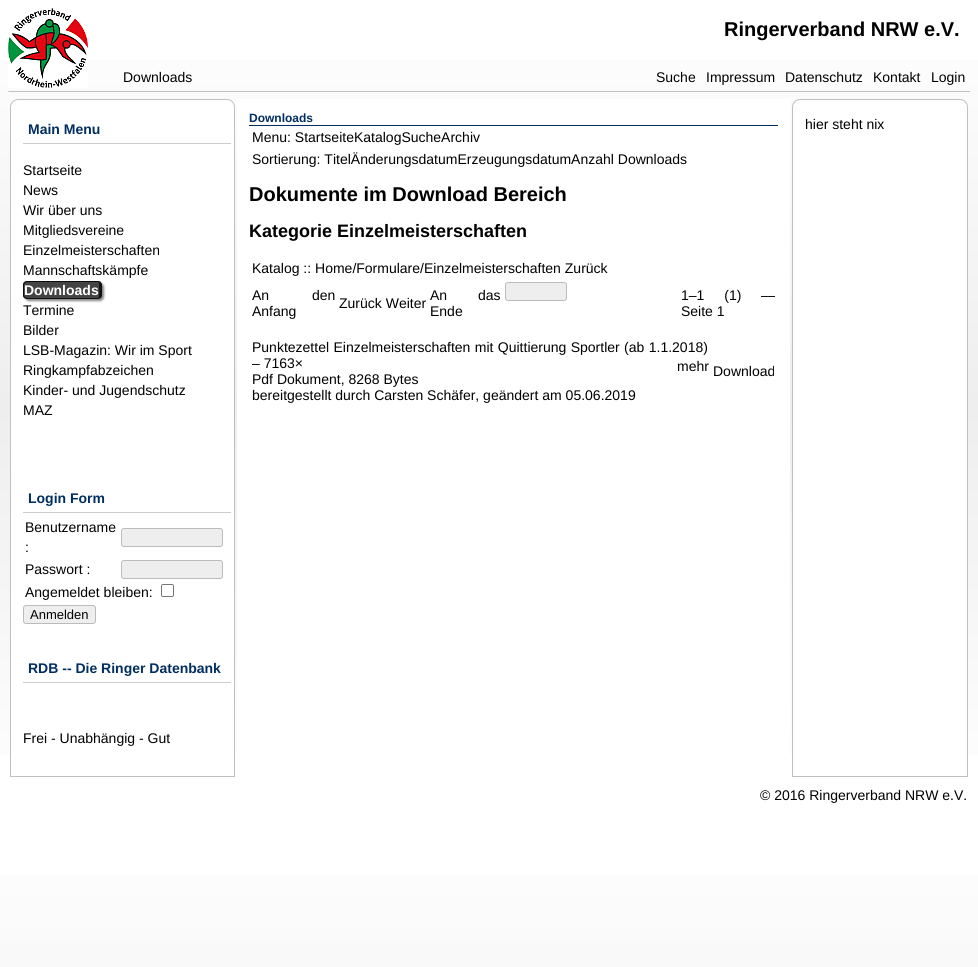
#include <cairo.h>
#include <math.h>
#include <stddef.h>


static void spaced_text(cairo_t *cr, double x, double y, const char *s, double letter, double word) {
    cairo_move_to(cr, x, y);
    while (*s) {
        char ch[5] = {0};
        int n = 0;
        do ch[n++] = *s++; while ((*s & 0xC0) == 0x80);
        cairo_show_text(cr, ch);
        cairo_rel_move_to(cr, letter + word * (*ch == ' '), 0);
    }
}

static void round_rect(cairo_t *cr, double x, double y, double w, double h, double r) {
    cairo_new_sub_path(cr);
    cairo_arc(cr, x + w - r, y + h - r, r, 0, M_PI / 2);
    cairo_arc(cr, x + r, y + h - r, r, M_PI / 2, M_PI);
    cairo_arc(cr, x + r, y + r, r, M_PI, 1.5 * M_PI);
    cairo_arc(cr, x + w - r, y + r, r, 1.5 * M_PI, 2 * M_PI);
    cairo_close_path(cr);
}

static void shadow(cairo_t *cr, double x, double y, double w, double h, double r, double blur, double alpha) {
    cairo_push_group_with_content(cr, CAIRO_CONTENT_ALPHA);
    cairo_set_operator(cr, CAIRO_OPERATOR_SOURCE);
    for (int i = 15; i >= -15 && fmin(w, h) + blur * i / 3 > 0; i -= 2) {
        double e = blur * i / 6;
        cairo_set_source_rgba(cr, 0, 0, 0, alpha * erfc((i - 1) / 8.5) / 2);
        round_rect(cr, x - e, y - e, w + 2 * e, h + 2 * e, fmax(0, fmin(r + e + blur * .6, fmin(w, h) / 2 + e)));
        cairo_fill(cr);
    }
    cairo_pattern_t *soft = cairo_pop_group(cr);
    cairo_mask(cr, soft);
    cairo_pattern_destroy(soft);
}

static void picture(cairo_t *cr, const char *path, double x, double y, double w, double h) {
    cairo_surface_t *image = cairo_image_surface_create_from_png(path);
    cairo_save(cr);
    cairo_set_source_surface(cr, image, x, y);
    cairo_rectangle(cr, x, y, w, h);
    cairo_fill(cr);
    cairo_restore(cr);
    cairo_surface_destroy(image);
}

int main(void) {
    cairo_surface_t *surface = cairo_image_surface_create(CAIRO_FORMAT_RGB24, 978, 967);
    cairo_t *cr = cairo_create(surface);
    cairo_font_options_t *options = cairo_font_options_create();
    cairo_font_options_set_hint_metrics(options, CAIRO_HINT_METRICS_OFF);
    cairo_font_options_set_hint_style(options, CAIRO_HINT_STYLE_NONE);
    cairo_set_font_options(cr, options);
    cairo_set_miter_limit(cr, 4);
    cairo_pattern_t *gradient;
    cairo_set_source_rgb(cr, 1, 1, 1);
    cairo_paint(cr);
    gradient = cairo_pattern_create_linear(489, 0, 489, 814);
    cairo_pattern_add_color_stop_rgba(gradient, 0, 1, 1, 1, 1);
    cairo_pattern_add_color_stop_rgba(gradient, 0.5, 0.933, 0.933, 0.933, 1);
    cairo_pattern_add_color_stop_rgba(gradient, 1, 1, 1, 1, 1);
    cairo_set_source(cr, gradient);
    cairo_pattern_destroy(gradient);
    cairo_rectangle(cr, 0, 60, 978, 694);
    cairo_fill(cr);
    gradient = cairo_pattern_create_linear(489, 814, 489, 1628);
    cairo_pattern_add_color_stop_rgba(gradient, 0, 1, 1, 1, 1);
    cairo_pattern_add_color_stop_rgba(gradient, 0.5, 0.933, 0.933, 0.933, 1);
    cairo_pattern_add_color_stop_rgba(gradient, 1, 1, 1, 1, 1);
    cairo_set_source(cr, gradient);
    cairo_pattern_destroy(gradient);
    cairo_rectangle(cr, 0, 874, 978, 93);
    cairo_fill(cr);
    picture(cr, "img1.png", 8, 8, 80, 80);
    cairo_select_font_face(cr, "Liberation Sans", CAIRO_FONT_SLANT_NORMAL, CAIRO_FONT_WEIGHT_BOLD);
    cairo_set_font_size(cr, 20);
    cairo_set_source_rgb(cr, 0, 0, 0);
    cairo_move_to(cr, 724, 36);
    cairo_show_text(cr, "Ringerverband NRW e.V.");
    cairo_select_font_face(cr, "Liberation Sans", CAIRO_FONT_SLANT_NORMAL, CAIRO_FONT_WEIGHT_NORMAL);
    cairo_set_font_size(cr, 14);
    cairo_move_to(cr, 123, 82);
    cairo_show_text(cr, "Downloads");
    cairo_move_to(cr, 656, 82);
    cairo_show_text(cr, "Suche");
    cairo_move_to(cr, 706, 82);
    cairo_show_text(cr, "Impressum");
    cairo_move_to(cr, 785, 82);
    cairo_show_text(cr, "Datenschutz");
    cairo_move_to(cr, 873, 82);
    cairo_show_text(cr, "Kontakt");
    cairo_move_to(cr, 931, 82);
    cairo_show_text(cr, "Login");
    cairo_set_source_rgb(cr, 0.753, 0.753, 0.753);
    cairo_rectangle(cr, 9, 91, 961, 1);
    cairo_fill(cr);
    cairo_arc(cr, 8.5, 91.5, 0.5, 0, 2 * M_PI);
    cairo_fill(cr);
    cairo_set_source_rgb(cr, 1, 1, 1);
    cairo_new_path(cr);
    cairo_move_to(cr, 18, 99.5);
    cairo_line_to(cr, 227, 99.5);
    cairo_curve_to(cr, 231, 99.5, 234.5, 103, 234.5, 107);
    cairo_line_to(cr, 234.5, 776.5);
    cairo_line_to(cr, 10.5, 776.5);
    cairo_line_to(cr, 10.5, 107);
    cairo_curve_to(cr, 10.5, 103, 14, 99.5, 18, 99.5);
    cairo_close_path(cr);
    cairo_fill_preserve(cr);
    cairo_set_source_rgb(cr, 0.753, 0.753, 0.753);
    cairo_set_line_width(cr, 1);
    cairo_stroke(cr);
    cairo_set_source_rgb(cr, 0.8, 0.8, 0.8);
    cairo_rectangle(cr, 23, 143, 208, 1);
    cairo_fill(cr);
    cairo_select_font_face(cr, "Liberation Sans", CAIRO_FONT_SLANT_NORMAL, CAIRO_FONT_WEIGHT_BOLD);
    cairo_set_source_rgb(cr, 0, 0.18, 0.38);
    cairo_move_to(cr, 28, 134);
    cairo_show_text(cr, "Main Menu");
    cairo_select_font_face(cr, "Liberation Sans", CAIRO_FONT_SLANT_NORMAL, CAIRO_FONT_WEIGHT_NORMAL);
    cairo_set_source_rgb(cr, 0, 0, 0);
    cairo_move_to(cr, 23, 175);
    cairo_show_text(cr, "Startseite");
    cairo_move_to(cr, 23, 195);
    cairo_show_text(cr, "News");
    cairo_move_to(cr, 23, 215);
    cairo_show_text(cr, "Wir über uns");
    cairo_move_to(cr, 23, 235);
    cairo_show_text(cr, "Mitgliedsvereine");
    cairo_move_to(cr, 23, 255);
    cairo_show_text(cr, "Einzelmeisterschaften");
    cairo_move_to(cr, 23, 275);
    cairo_show_text(cr, "Mannschaftskämpfe");
    cairo_set_source_rgb(cr, 0.533, 0.533, 0.533);
    shadow(cr, 25, 283, 79, 18, 4, 1, 1);
    cairo_set_source_rgb(cr, 0.267, 0.267, 0.267);
    round_rect(cr, 23, 281, 79, 18, 4);
    cairo_fill(cr);
    cairo_set_source_rgb(cr, 0.043, 0.043, 0.043);
    cairo_new_path(cr);
    cairo_move_to(cr, 27, 281);
    cairo_line_to(cr, 24, 282);
    cairo_line_to(cr, 25, 283);
    cairo_line_to(cr, 27, 282);
    cairo_line_to(cr, 99, 282);
    cairo_line_to(cr, 100, 282);
    cairo_line_to(cr, 98, 281);
    cairo_close_path(cr);
    cairo_fill(cr);
    cairo_set_source_rgb(cr, 0.067, 0.067, 0.067);
    cairo_new_path(cr);
    cairo_move_to(cr, 102, 295);
    cairo_line_to(cr, 102, 285);
    cairo_curve_to(cr, 102, 283.5, 101, 282.5, 100, 281.5);
    cairo_line_to(cr, 98.5, 282);
    cairo_curve_to(cr, 99.5, 282.5, 99.5, 297.5, 98.5, 298);
    cairo_line_to(cr, 100, 298.5);
    cairo_curve_to(cr, 101, 297.5, 102, 296.5, 102, 295);
    cairo_close_path(cr);
    cairo_fill(cr);
    cairo_new_path(cr);
    cairo_move_to(cr, 27, 299);
    cairo_line_to(cr, 98, 299);
    cairo_line_to(cr, 100, 298);
    cairo_line_to(cr, 99, 298);
    cairo_line_to(cr, 27, 298);
    cairo_line_to(cr, 25, 297);
    cairo_line_to(cr, 24, 298);
    cairo_close_path(cr);
    cairo_fill(cr);
    cairo_set_source_rgb(cr, 0.043, 0.043, 0.043);
    cairo_new_path(cr);
    cairo_move_to(cr, 23, 285);
    cairo_line_to(cr, 23, 295);
    cairo_curve_to(cr, 23, 296, 23.5, 297, 24, 298);
    cairo_line_to(cr, 25, 297);
    cairo_curve_to(cr, 23.5, 296, 24, 291.5, 24, 290);
    cairo_curve_to(cr, 24, 288.5, 23.5, 284, 25, 283);
    cairo_line_to(cr, 24, 282);
    cairo_curve_to(cr, 23.5, 283, 23, 284, 23, 285);
    cairo_close_path(cr);
    cairo_fill(cr);
    cairo_select_font_face(cr, "Liberation Sans", CAIRO_FONT_SLANT_NORMAL, CAIRO_FONT_WEIGHT_BOLD);
    cairo_set_source_rgb(cr, 1, 1, 1);
    cairo_move_to(cr, 24, 295);
    cairo_show_text(cr, "Downloads");
    cairo_select_font_face(cr, "Liberation Sans", CAIRO_FONT_SLANT_NORMAL, CAIRO_FONT_WEIGHT_NORMAL);
    cairo_set_source_rgb(cr, 0, 0, 0);
    cairo_move_to(cr, 23, 315);
    cairo_show_text(cr, "Termine");
    cairo_move_to(cr, 23, 335);
    cairo_show_text(cr, "Bilder");
    cairo_move_to(cr, 23, 355);
    cairo_show_text(cr, "LSB-Magazin: Wir im Sport");
    cairo_move_to(cr, 23, 375);
    cairo_show_text(cr, "Ringkampfabzeichen");
    cairo_move_to(cr, 23, 395);
    cairo_show_text(cr, "Kinder- und Jugendschutz");
    cairo_move_to(cr, 23, 415);
    cairo_show_text(cr, "MAZ");
    cairo_set_source_rgb(cr, 0.8, 0.8, 0.8);
    cairo_rectangle(cr, 23, 512, 208, 1);
    cairo_fill(cr);
    cairo_select_font_face(cr, "Liberation Sans", CAIRO_FONT_SLANT_NORMAL, CAIRO_FONT_WEIGHT_BOLD);
    cairo_set_source_rgb(cr, 0, 0.18, 0.38);
    cairo_move_to(cr, 28, 503);
    cairo_show_text(cr, "Login Form");
    cairo_select_font_face(cr, "Liberation Sans", CAIRO_FONT_SLANT_NORMAL, CAIRO_FONT_WEIGHT_NORMAL);
    cairo_set_source_rgb(cr, 0, 0, 0);
    cairo_move_to(cr, 25, 532);
    cairo_show_text(cr, "Benutzername");
    cairo_move_to(cr, 25, 552);
    cairo_show_text(cr, ":");
    cairo_set_source_rgb(cr, 0.933, 0.933, 0.933);
    round_rect(cr, 121.5, 528.5, 101, 18, 2.5);
    cairo_fill_preserve(cr);
    cairo_set_source_rgb(cr, 0.733, 0.733, 0.733);
    cairo_stroke(cr);
    cairo_set_source_rgb(cr, 0, 0, 0);
    cairo_move_to(cr, 25, 574);
    cairo_show_text(cr, "Passwort :");
    cairo_set_source_rgb(cr, 0.933, 0.933, 0.933);
    round_rect(cr, 121.5, 560.5, 101, 18, 2.5);
    cairo_fill_preserve(cr);
    cairo_set_source_rgb(cr, 0.733, 0.733, 0.733);
    cairo_stroke(cr);
    cairo_set_source_rgb(cr, 0, 0, 0);
    cairo_move_to(cr, 25, 597);
    cairo_show_text(cr, "Angemeldet bleiben:");
    round_rect(cr, 161.5, 584.5, 12, 12, 1.5);
    cairo_set_source_rgb(cr, 0.463, 0.463, 0.463);
    cairo_stroke(cr);
    cairo_set_source_rgb(cr, 0.933, 0.933, 0.933);
    round_rect(cr, 23.5, 605.5, 72, 18, 2.5);
    cairo_fill_preserve(cr);
    cairo_set_source_rgb(cr, 0.733, 0.733, 0.733);
    cairo_stroke(cr);
    cairo_set_font_size(cr, 13);
    cairo_set_source_rgb(cr, 0, 0, 0);
    cairo_move_to(cr, 30, 619);
    cairo_show_text(cr, "Anmelden");
    cairo_set_source_rgb(cr, 0.8, 0.8, 0.8);
    cairo_rectangle(cr, 23, 682, 208, 1);
    cairo_fill(cr);
    cairo_select_font_face(cr, "Liberation Sans", CAIRO_FONT_SLANT_NORMAL, CAIRO_FONT_WEIGHT_BOLD);
    cairo_set_font_size(cr, 14);
    cairo_set_source_rgb(cr, 0, 0.18, 0.38);
    cairo_move_to(cr, 28, 673);
    cairo_show_text(cr, "RDB -- Die Ringer Datenbank");
    cairo_select_font_face(cr, "Liberation Sans", CAIRO_FONT_SLANT_NORMAL, CAIRO_FONT_WEIGHT_NORMAL);
    cairo_set_source_rgb(cr, 0, 0, 0);
    cairo_move_to(cr, 23, 743);
    cairo_show_text(cr, "Frei - Unabhängig - Gut");
    cairo_set_source_rgb(cr, 1, 1, 1);
    cairo_rectangle(cr, 237, 99, 553, 655);
    cairo_fill(cr);
    cairo_set_source_rgb(cr, 0, 0.18, 0.38);
    cairo_rectangle(cr, 249, 125, 529, 1);
    cairo_fill(cr);
    cairo_select_font_face(cr, "Liberation Sans", CAIRO_FONT_SLANT_NORMAL, CAIRO_FONT_WEIGHT_BOLD);
    cairo_set_font_size(cr, 12);
    cairo_move_to(cr, 249, 122);
    cairo_show_text(cr, "Downloads");
    cairo_select_font_face(cr, "Liberation Sans", CAIRO_FONT_SLANT_NORMAL, CAIRO_FONT_WEIGHT_NORMAL);
    cairo_set_font_size(cr, 14);
    cairo_set_source_rgb(cr, 0, 0, 0);
    cairo_move_to(cr, 252, 142);
    cairo_show_text(cr, "Menu: StartseiteKatalogSucheArchiv");
    cairo_move_to(cr, 252, 164);
    cairo_show_text(cr, "Sortierung: TitelÄnderungsdatumErzeugungsdatumAnzahl Downloads");
    cairo_select_font_face(cr, "Liberation Sans", CAIRO_FONT_SLANT_NORMAL, CAIRO_FONT_WEIGHT_BOLD);
    cairo_set_font_size(cr, 20);
    cairo_move_to(cr, 249, 201);
    cairo_show_text(cr, "Dokumente im Download Bereich");
    cairo_set_font_size(cr, 18);
    cairo_move_to(cr, 249, 237);
    cairo_show_text(cr, "Kategorie Einzelmeisterschaften");
    cairo_select_font_face(cr, "Liberation Sans", CAIRO_FONT_SLANT_NORMAL, CAIRO_FONT_WEIGHT_NORMAL);
    cairo_set_font_size(cr, 14);
    cairo_move_to(cr, 252, 273);
    cairo_show_text(cr, "Katalog :: Home/Formulare/Einzelmeisterschaften Zurück");
    spaced_text(cr, 252, 300, "An den", 0, 39);
    cairo_move_to(cr, 252, 316);
    cairo_show_text(cr, "Anfang");
    cairo_move_to(cr, 339, 308);
    cairo_show_text(cr, "Zurück Weiter");
    spaced_text(cr, 430, 300, "An das", 0, 27);
    cairo_move_to(cr, 430, 316);
    cairo_show_text(cr, "Ende");
    cairo_set_source_rgb(cr, 0.933, 0.933, 0.933);
    round_rect(cr, 505.5, 282.5, 61, 18, 2.5);
    cairo_fill_preserve(cr);
    cairo_set_source_rgb(cr, 0.733, 0.733, 0.733);
    cairo_stroke(cr);
    cairo_set_source_rgb(cr, 0, 0, 0);
    spaced_text(cr, 681, 300, "1–1 (1)", 0, 16);
    cairo_move_to(cr, 761, 300);
    cairo_show_text(cr, "—");
    cairo_move_to(cr, 681, 316);
    cairo_show_text(cr, "Seite 1");
    spaced_text(cr, 252, 352, "Punktezettel Einzelmeisterschaften mit Quittierung Sportler (ab 1.1.2018)", 0, 0.5);
    cairo_move_to(cr, 252, 368);
    cairo_show_text(cr, "– 7163×");
    cairo_move_to(cr, 677, 371);
    cairo_show_text(cr, "mehr");
    cairo_move_to(cr, 252, 384);
    cairo_show_text(cr, "Pdf Dokument, 8268 Bytes");
    cairo_move_to(cr, 252, 400);
    cairo_show_text(cr, "bereitgestellt durch Carsten Schäfer, geändert am 05.06.2019");
    cairo_move_to(cr, 713, 376);
    cairo_show_text(cr, "Download");
    cairo_set_source_rgb(cr, 1, 1, 1);
    cairo_new_path(cr);
    cairo_move_to(cr, 800, 99.5);
    cairo_line_to(cr, 960, 99.5);
    cairo_curve_to(cr, 964, 99.5, 967.5, 103, 967.5, 107);
    cairo_line_to(cr, 967.5, 776.5);
    cairo_line_to(cr, 792.5, 776.5);
    cairo_line_to(cr, 792.5, 107);
    cairo_curve_to(cr, 792.5, 103, 796, 99.5, 800, 99.5);
    cairo_close_path(cr);
    cairo_fill_preserve(cr);
    cairo_set_source_rgb(cr, 0.753, 0.753, 0.753);
    cairo_stroke(cr);
    cairo_set_source_rgb(cr, 0, 0, 0);
    cairo_move_to(cr, 805, 129);
    cairo_show_text(cr, "hier steht nix");
    cairo_move_to(cr, 760, 800);
    cairo_show_text(cr, "© 2016 Ringerverband NRW e.V.");
    cairo_surface_write_to_png(surface, "page.png");
    cairo_font_options_destroy(options);
    cairo_destroy(cr);
    cairo_surface_destroy(surface);
    return 0;
}
